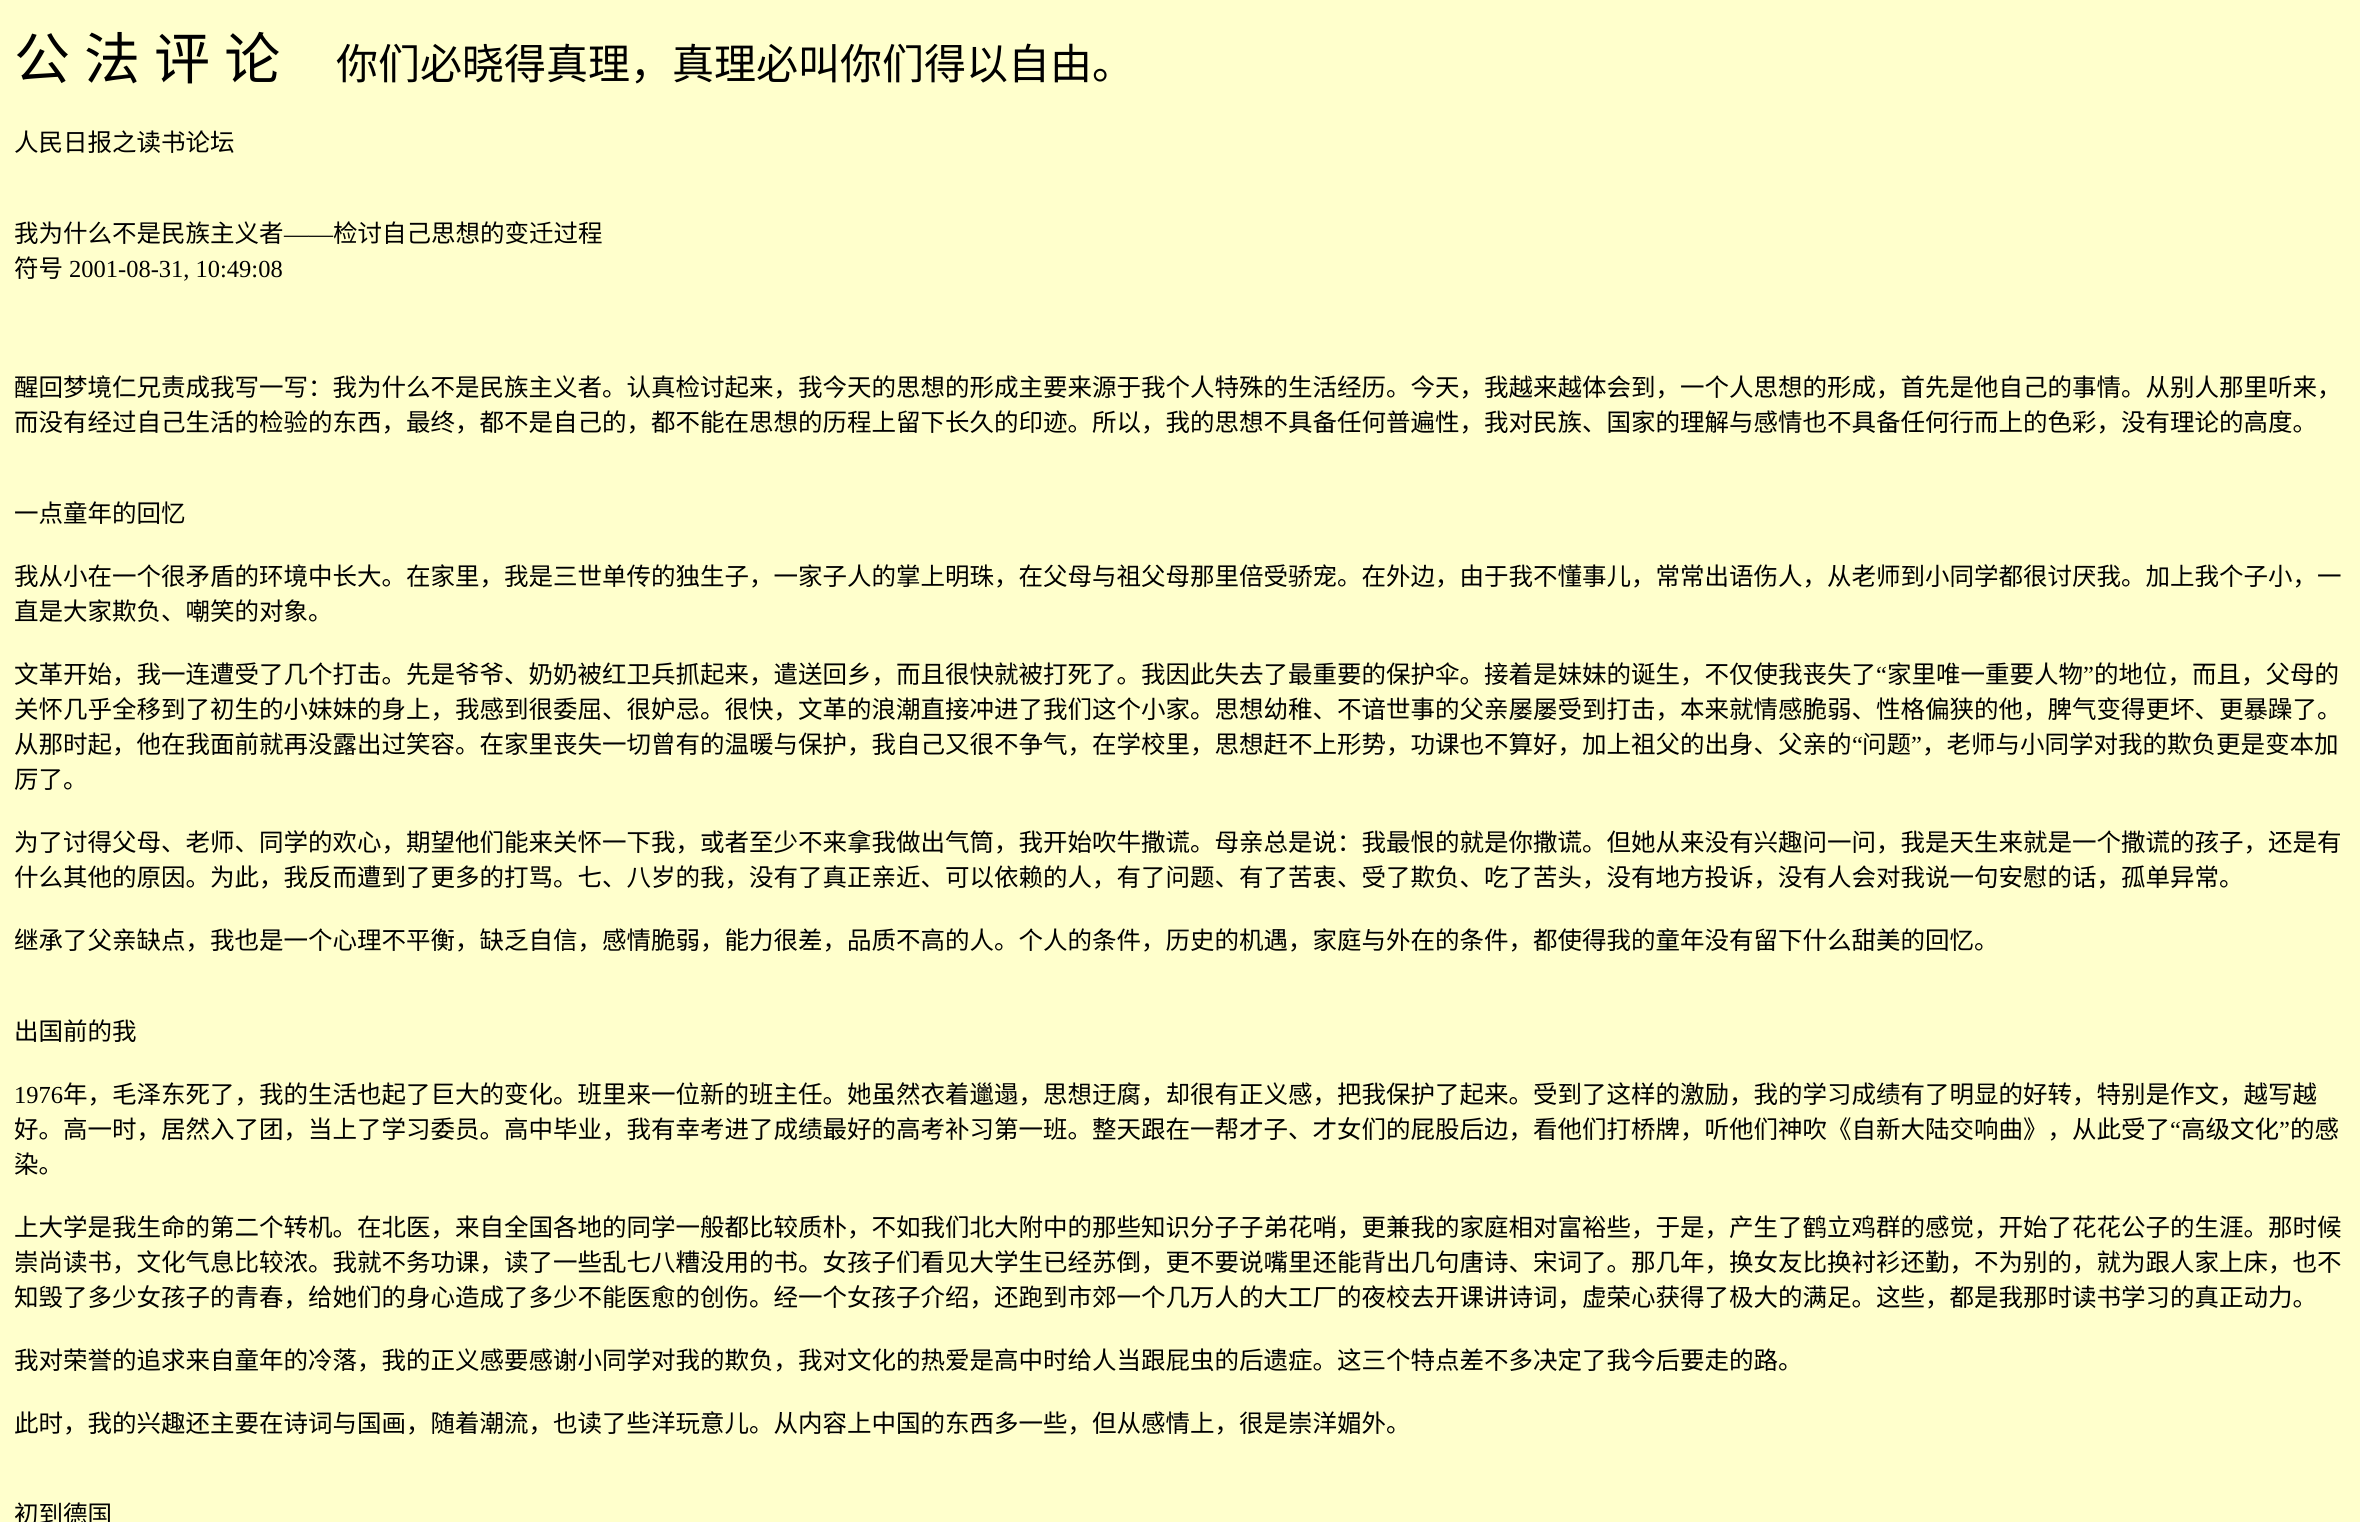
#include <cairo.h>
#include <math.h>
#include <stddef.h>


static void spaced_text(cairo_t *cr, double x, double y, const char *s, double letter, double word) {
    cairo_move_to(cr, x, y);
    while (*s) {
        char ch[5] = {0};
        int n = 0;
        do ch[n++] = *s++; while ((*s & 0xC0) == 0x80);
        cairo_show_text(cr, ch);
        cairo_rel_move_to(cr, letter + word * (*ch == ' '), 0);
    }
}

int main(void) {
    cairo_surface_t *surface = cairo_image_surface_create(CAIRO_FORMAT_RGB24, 2360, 1522);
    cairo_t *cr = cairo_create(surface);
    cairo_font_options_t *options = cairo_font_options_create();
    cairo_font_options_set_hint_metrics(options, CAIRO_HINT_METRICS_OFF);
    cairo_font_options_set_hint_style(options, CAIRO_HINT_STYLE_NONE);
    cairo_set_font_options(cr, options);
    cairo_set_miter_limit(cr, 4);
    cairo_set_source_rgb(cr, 1, 1, 0.8);
    cairo_paint(cr);
    cairo_select_font_face(cr, "Noto Sans CJK SC", CAIRO_FONT_SLANT_NORMAL, CAIRO_FONT_WEIGHT_NORMAL);
    cairo_set_font_size(cr, 56);
    cairo_set_source_rgb(cr, 0, 0, 0);
    spaced_text(cr, 14, 79, "公 法 评 论", 0, 1.5);
    cairo_set_font_size(cr, 42);
    cairo_move_to(cr, 336, 79);
    cairo_show_text(cr, "你们必晓得真理，真理必叫你们得以自由。");
    cairo_set_font_size(cr, 24.5);
    cairo_move_to(cr, 14, 151);
    cairo_show_text(cr, "人民日报之读书论坛");
    cairo_move_to(cr, 14, 242);
    cairo_show_text(cr, "我为什么不是民族主义者");
    cairo_select_font_face(cr, "Liberation Serif", CAIRO_FONT_SLANT_NORMAL, CAIRO_FONT_WEIGHT_NORMAL);
    cairo_move_to(cr, 284, 242);
    cairo_show_text(cr, "——");
    cairo_select_font_face(cr, "Noto Sans CJK SC", CAIRO_FONT_SLANT_NORMAL, CAIRO_FONT_WEIGHT_NORMAL);
    cairo_move_to(cr, 333, 242);
    cairo_show_text(cr, "检讨自己思想的变迁过程");
    cairo_move_to(cr, 14, 277);
    cairo_show_text(cr, "符号");
    cairo_select_font_face(cr, "Liberation Serif", CAIRO_FONT_SLANT_NORMAL, CAIRO_FONT_WEIGHT_NORMAL);
    cairo_move_to(cr, 69, 277);
    cairo_show_text(cr, "2001-08-31, 10:49:08");
    cairo_select_font_face(cr, "Noto Sans CJK SC", CAIRO_FONT_SLANT_NORMAL, CAIRO_FONT_WEIGHT_NORMAL);
    cairo_move_to(cr, 14, 396);
    cairo_show_text(cr, "醒回梦境仁兄责成我写一写：我为什么不是民族主义者。认真检讨起来，我今天的思想的形成主要来源于我个人特殊的生活经历。今天，我越来越体会到，一个人思想的形成，首先是他自己的事情。从别人那里听来，");
    cairo_move_to(cr, 14, 431);
    cairo_show_text(cr, "而没有经过自己生活的检验的东西，最终，都不是自己的，都不能在思想的历程上留下长久的印迹。所以，我的思想不具备任何普遍性，我对民族、国家的理解与感情也不具备任何行而上的色彩，没有理论的高度。");
    cairo_move_to(cr, 14, 522);
    cairo_show_text(cr, "一点童年的回忆");
    cairo_move_to(cr, 14, 585);
    cairo_show_text(cr, "我从小在一个很矛盾的环境中长大。在家里，我是三世单传的独生子，一家子人的掌上明珠，在父母与祖父母那里倍受骄宠。在外边，由于我不懂事儿，常常出语伤人，从老师到小同学都很讨厌我。加上我个子小，一");
    cairo_move_to(cr, 14, 620);
    cairo_show_text(cr, "直是大家欺负、嘲笑的对象。");
    cairo_move_to(cr, 14, 683);
    cairo_show_text(cr, "文革开始，我一连遭受了几个打击。先是爷爷、奶奶被红卫兵抓起来，遣送回乡，而且很快就被打死了。我因此失去了最重要的保护伞。接着是妹妹的诞生，不仅使我丧失了");
    cairo_select_font_face(cr, "Liberation Serif", CAIRO_FONT_SLANT_NORMAL, CAIRO_FONT_WEIGHT_NORMAL);
    cairo_move_to(cr, 1876, 683);
    cairo_show_text(cr, "“");
    cairo_select_font_face(cr, "Noto Sans CJK SC", CAIRO_FONT_SLANT_NORMAL, CAIRO_FONT_WEIGHT_NORMAL);
    cairo_move_to(cr, 1887, 683);
    cairo_show_text(cr, "家里唯一重要人物");
    cairo_select_font_face(cr, "Liberation Serif", CAIRO_FONT_SLANT_NORMAL, CAIRO_FONT_WEIGHT_NORMAL);
    cairo_move_to(cr, 2083, 683);
    cairo_show_text(cr, "”");
    cairo_select_font_face(cr, "Noto Sans CJK SC", CAIRO_FONT_SLANT_NORMAL, CAIRO_FONT_WEIGHT_NORMAL);
    cairo_move_to(cr, 2094, 683);
    cairo_show_text(cr, "的地位，而且，父母的");
    cairo_move_to(cr, 14, 718);
    cairo_show_text(cr, "关怀几乎全移到了初生的小妹妹的身上，我感到很委屈、很妒忌。很快，文革的浪潮直接冲进了我们这个小家。思想幼稚、不谙世事的父亲屡屡受到打击，本来就情感脆弱、性格偏狭的他，脾气变得更坏、更暴躁了。");
    cairo_move_to(cr, 14, 753);
    cairo_show_text(cr, "从那时起，他在我面前就再没露出过笑容。在家里丧失一切曾有的温暖与保护，我自己又很不争气，在学校里，思想赶不上形势，功课也不算好，加上祖父的出身、父亲的");
    cairo_select_font_face(cr, "Liberation Serif", CAIRO_FONT_SLANT_NORMAL, CAIRO_FONT_WEIGHT_NORMAL);
    cairo_move_to(cr, 1852, 753);
    cairo_show_text(cr, "“");
    cairo_select_font_face(cr, "Noto Sans CJK SC", CAIRO_FONT_SLANT_NORMAL, CAIRO_FONT_WEIGHT_NORMAL);
    cairo_move_to(cr, 1862, 753);
    cairo_show_text(cr, "问题");
    cairo_select_font_face(cr, "Liberation Serif", CAIRO_FONT_SLANT_NORMAL, CAIRO_FONT_WEIGHT_NORMAL);
    cairo_move_to(cr, 1911, 753);
    cairo_show_text(cr, "”");
    cairo_select_font_face(cr, "Noto Sans CJK SC", CAIRO_FONT_SLANT_NORMAL, CAIRO_FONT_WEIGHT_NORMAL);
    cairo_move_to(cr, 1922, 753);
    cairo_show_text(cr, "，老师与小同学对我的欺负更是变本加");
    cairo_move_to(cr, 14, 788);
    cairo_show_text(cr, "厉了。");
    cairo_move_to(cr, 14, 851);
    cairo_show_text(cr, "为了讨得父母、老师、同学的欢心，期望他们能来关怀一下我，或者至少不来拿我做出气筒，我开始吹牛撒谎。母亲总是说：我最恨的就是你撒谎。但她从来没有兴趣问一问，我是天生来就是一个撒谎的孩子，还是有");
    cairo_move_to(cr, 14, 886);
    cairo_show_text(cr, "什么其他的原因。为此，我反而遭到了更多的打骂。七、八岁的我，没有了真正亲近、可以依赖的人，有了问题、有了苦衷、受了欺负、吃了苦头，没有地方投诉，没有人会对我说一句安慰的话，孤单异常。");
    cairo_move_to(cr, 14, 949);
    cairo_show_text(cr, "继承了父亲缺点，我也是一个心理不平衡，缺乏自信，感情脆弱，能力很差，品质不高的人。个人的条件，历史的机遇，家庭与外在的条件，都使得我的童年没有留下什么甜美的回忆。");
    cairo_move_to(cr, 14, 1040);
    cairo_show_text(cr, "出国前的我");
    cairo_select_font_face(cr, "Liberation Serif", CAIRO_FONT_SLANT_NORMAL, CAIRO_FONT_WEIGHT_NORMAL);
    cairo_move_to(cr, 14, 1103);
    cairo_show_text(cr, "1976");
    cairo_select_font_face(cr, "Noto Sans CJK SC", CAIRO_FONT_SLANT_NORMAL, CAIRO_FONT_WEIGHT_NORMAL);
    cairo_move_to(cr, 63, 1103);
    cairo_show_text(cr, "年，毛泽东死了，我的生活也起了巨大的变化。班里来一位新的班主任。她虽然衣着邋遢，思想迂腐，却很有正义感，把我保护了起来。受到了这样的激励，我的学习成绩有了明显的好转，特别是作文，越写越");
    cairo_move_to(cr, 14, 1138);
    cairo_show_text(cr, "好。高一时，居然入了团，当上了学习委员。高中毕业，我有幸考进了成绩最好的高考补习第一班。整天跟在一帮才子、才女们的屁股后边，看他们打桥牌，听他们神吹《自新大陆交响曲》，从此受了");
    cairo_select_font_face(cr, "Liberation Serif", CAIRO_FONT_SLANT_NORMAL, CAIRO_FONT_WEIGHT_NORMAL);
    cairo_move_to(cr, 2170, 1138);
    cairo_show_text(cr, "“");
    cairo_select_font_face(cr, "Noto Sans CJK SC", CAIRO_FONT_SLANT_NORMAL, CAIRO_FONT_WEIGHT_NORMAL);
    cairo_move_to(cr, 2181, 1138);
    cairo_show_text(cr, "高级文化");
    cairo_select_font_face(cr, "Liberation Serif", CAIRO_FONT_SLANT_NORMAL, CAIRO_FONT_WEIGHT_NORMAL);
    cairo_move_to(cr, 2279, 1138);
    cairo_show_text(cr, "”");
    cairo_select_font_face(cr, "Noto Sans CJK SC", CAIRO_FONT_SLANT_NORMAL, CAIRO_FONT_WEIGHT_NORMAL);
    cairo_move_to(cr, 2290, 1138);
    cairo_show_text(cr, "的感");
    cairo_move_to(cr, 14, 1173);
    cairo_show_text(cr, "染。");
    cairo_move_to(cr, 14, 1236);
    cairo_show_text(cr, "上大学是我生命的第二个转机。在北医，来自全国各地的同学一般都比较质朴，不如我们北大附中的那些知识分子子弟花哨，更兼我的家庭相对富裕些，于是，产生了鹤立鸡群的感觉，开始了花花公子的生涯。那时候");
    cairo_move_to(cr, 14, 1271);
    cairo_show_text(cr, "崇尚读书，文化气息比较浓。我就不务功课，读了一些乱七八糟没用的书。女孩子们看见大学生已经苏倒，更不要说嘴里还能背出几句唐诗、宋词了。那几年，换女友比换衬衫还勤，不为别的，就为跟人家上床，也不");
    cairo_move_to(cr, 14, 1306);
    cairo_show_text(cr, "知毁了多少女孩子的青春，给她们的身心造成了多少不能医愈的创伤。经一个女孩子介绍，还跑到市郊一个几万人的大工厂的夜校去开课讲诗词，虚荣心获得了极大的满足。这些，都是我那时读书学习的真正动力。");
    cairo_move_to(cr, 14, 1369);
    cairo_show_text(cr, "我对荣誉的追求来自童年的冷落，我的正义感要感谢小同学对我的欺负，我对文化的热爱是高中时给人当跟屁虫的后遗症。这三个特点差不多决定了我今后要走的路。");
    cairo_move_to(cr, 14, 1432);
    cairo_show_text(cr, "此时，我的兴趣还主要在诗词与国画，随着潮流，也读了些洋玩意儿。从内容上中国的东西多一些，但从感情上，很是崇洋媚外。");
    cairo_move_to(cr, 14, 1523);
    cairo_show_text(cr, "初到德国");
    cairo_surface_write_to_png(surface, "page.png");
    cairo_font_options_destroy(options);
    cairo_destroy(cr);
    cairo_surface_destroy(surface);
    return 0;
}
